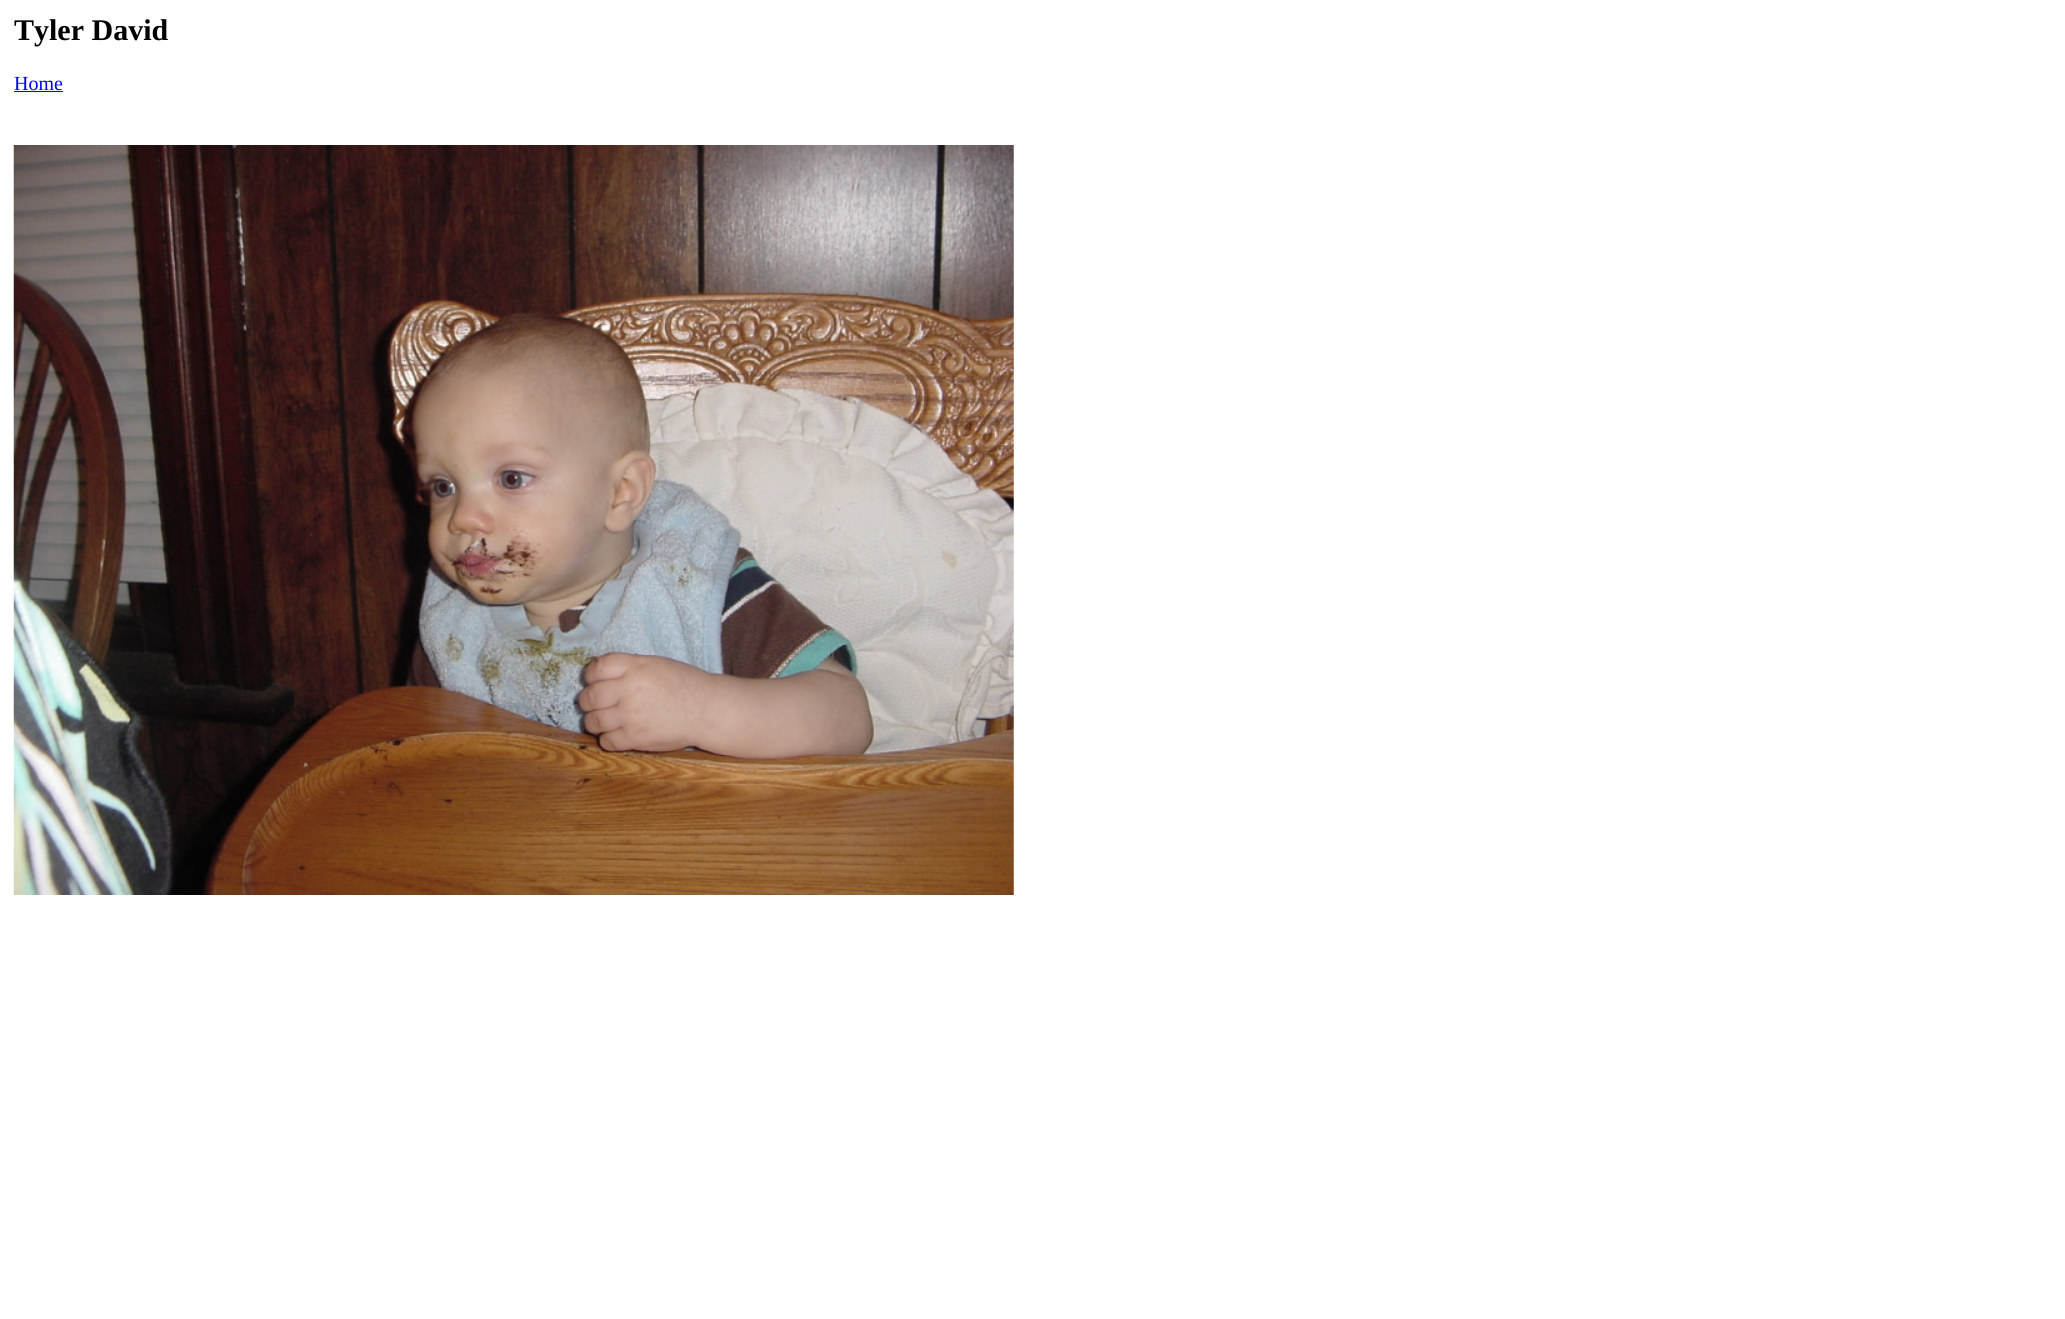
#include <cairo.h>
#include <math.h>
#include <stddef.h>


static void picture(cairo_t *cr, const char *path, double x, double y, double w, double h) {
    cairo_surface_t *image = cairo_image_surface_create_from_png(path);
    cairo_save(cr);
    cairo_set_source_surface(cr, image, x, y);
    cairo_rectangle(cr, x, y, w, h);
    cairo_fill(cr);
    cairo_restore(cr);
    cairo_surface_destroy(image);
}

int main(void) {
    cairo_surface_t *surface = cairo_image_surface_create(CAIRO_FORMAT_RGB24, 2065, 1319);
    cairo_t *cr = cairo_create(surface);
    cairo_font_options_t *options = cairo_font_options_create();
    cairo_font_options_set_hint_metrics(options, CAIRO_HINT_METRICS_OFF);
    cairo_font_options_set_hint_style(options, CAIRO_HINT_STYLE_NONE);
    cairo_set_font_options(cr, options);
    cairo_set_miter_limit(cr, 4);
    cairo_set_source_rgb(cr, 1, 1, 1);
    cairo_paint(cr);
    cairo_select_font_face(cr, "Liberation Serif", CAIRO_FONT_SLANT_NORMAL, CAIRO_FONT_WEIGHT_BOLD);
    cairo_set_font_size(cr, 30);
    cairo_set_source_rgb(cr, 0, 0, 0);
    cairo_move_to(cr, 14, 40);
    cairo_show_text(cr, "Tyler David");
    cairo_select_font_face(cr, "Liberation Serif", CAIRO_FONT_SLANT_NORMAL, CAIRO_FONT_WEIGHT_NORMAL);
    cairo_set_font_size(cr, 20);
    cairo_set_source_rgb(cr, 0, 0, 0.933);
    cairo_move_to(cr, 14, 90);
    cairo_show_text(cr, "Home");
    cairo_rectangle(cr, 14, 91, 49, 1);
    cairo_fill(cr);
    picture(cr, "img1.png", 13, 145, 1001, 750);
    cairo_surface_write_to_png(surface, "page.png");
    cairo_font_options_destroy(options);
    cairo_destroy(cr);
    cairo_surface_destroy(surface);
    return 0;
}
